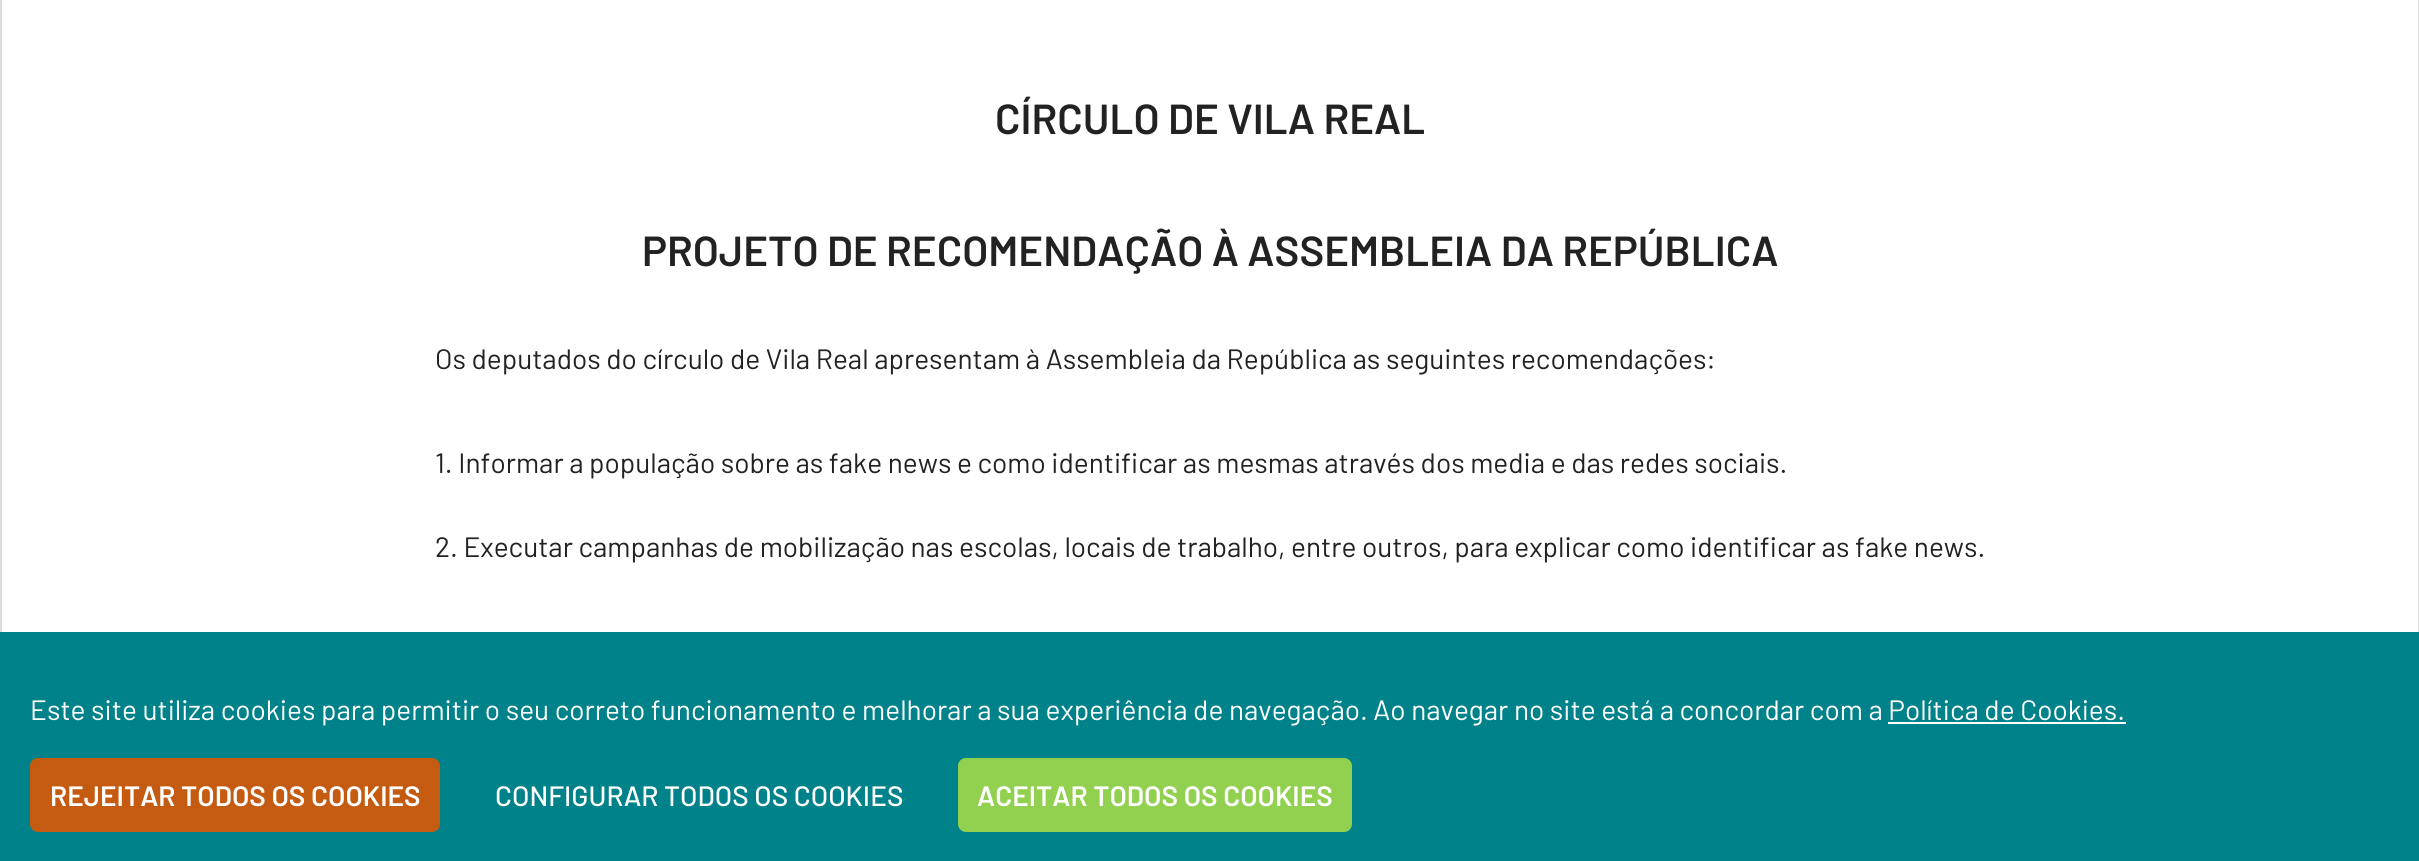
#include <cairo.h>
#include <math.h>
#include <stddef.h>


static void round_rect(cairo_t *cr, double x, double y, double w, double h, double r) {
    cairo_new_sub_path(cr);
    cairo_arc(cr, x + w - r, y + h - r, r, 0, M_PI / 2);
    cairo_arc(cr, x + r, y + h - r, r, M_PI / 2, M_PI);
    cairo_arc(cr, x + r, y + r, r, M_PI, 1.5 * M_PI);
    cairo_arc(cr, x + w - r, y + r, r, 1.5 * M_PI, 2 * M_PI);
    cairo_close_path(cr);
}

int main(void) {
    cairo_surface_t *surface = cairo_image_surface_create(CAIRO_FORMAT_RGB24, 2419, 861);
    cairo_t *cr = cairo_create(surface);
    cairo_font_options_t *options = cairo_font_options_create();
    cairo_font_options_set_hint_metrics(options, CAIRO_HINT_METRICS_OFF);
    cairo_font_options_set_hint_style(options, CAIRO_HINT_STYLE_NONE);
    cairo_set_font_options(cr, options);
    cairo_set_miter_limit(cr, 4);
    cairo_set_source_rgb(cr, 1, 1, 1);
    cairo_paint(cr);
    cairo_rectangle(cr, 1, -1, 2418, 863);
    cairo_set_source_rgb(cr, 0.867, 0.867, 0.867);
    cairo_stroke(cr);
    cairo_select_font_face(cr, "Barlow SemiBold", CAIRO_FONT_SLANT_NORMAL, CAIRO_FONT_WEIGHT_NORMAL);
    cairo_set_font_size(cr, 42);
    cairo_set_source_rgb(cr, 0.133, 0.133, 0.133);
    cairo_move_to(cr, 995, 134);
    cairo_show_text(cr, "CÍRCULO DE VILA REAL");
    cairo_move_to(cr, 642, 266);
    cairo_show_text(cr, "PROJETO DE RECOMENDAÇÃO À ASSEMBLEIA DA REPÚBLICA");
    cairo_select_font_face(cr, "Barlow", CAIRO_FONT_SLANT_NORMAL, CAIRO_FONT_WEIGHT_NORMAL);
    cairo_set_font_size(cr, 28);
    cairo_move_to(cr, 435, 369);
    cairo_show_text(cr, "Os deputados do círculo de Vila Real apresentam à Assembleia da República as seguintes recomendações:");
    cairo_move_to(cr, 435, 473);
    cairo_show_text(cr, "1. Informar a população sobre as fake news e como identificar as mesmas através dos media e das redes sociais.");
    cairo_move_to(cr, 435, 557);
    cairo_show_text(cr, "2. Executar campanhas de mobilização nas escolas, locais de trabalho, entre outros, para explicar como identificar as fake news.");
    cairo_set_source_rgb(cr, 0, 0.51, 0.541);
    cairo_rectangle(cr, 0, 632, 2419, 229);
    cairo_fill(cr);
    cairo_set_source_rgb(cr, 1, 1, 1);
    cairo_move_to(cr, 30, 720);
    cairo_show_text(cr, "Este site utiliza cookies para permitir o seu correto funcionamento e melhorar a sua experiência de navegação. Ao navegar no site está a concordar com a Política de Cookies.");
    cairo_rectangle(cr, 1888, 722, 238, 2);
    cairo_fill(cr);
    cairo_set_source_rgb(cr, 0.773, 0.353, 0.067);
    round_rect(cr, 30, 758, 410, 74, 8);
    cairo_fill(cr);
    cairo_select_font_face(cr, "Barlow SemiBold", CAIRO_FONT_SLANT_NORMAL, CAIRO_FONT_WEIGHT_NORMAL);
    cairo_set_source_rgb(cr, 1, 1, 1);
    cairo_move_to(cr, 50, 806);
    cairo_show_text(cr, "REJEITAR TODOS OS COOKIES");
    cairo_select_font_face(cr, "Barlow Medium", CAIRO_FONT_SLANT_NORMAL, CAIRO_FONT_WEIGHT_NORMAL);
    cairo_move_to(cr, 495, 806);
    cairo_show_text(cr, "CONFIGURAR TODOS OS COOKIES");
    cairo_set_source_rgb(cr, 0.573, 0.816, 0.314);
    round_rect(cr, 958, 758, 394, 74, 8);
    cairo_fill(cr);
    cairo_select_font_face(cr, "Barlow SemiBold", CAIRO_FONT_SLANT_NORMAL, CAIRO_FONT_WEIGHT_NORMAL);
    cairo_set_source_rgb(cr, 1, 1, 1);
    cairo_move_to(cr, 977, 806);
    cairo_show_text(cr, "ACEITAR TODOS OS COOKIES");
    cairo_surface_write_to_png(surface, "page.png");
    cairo_font_options_destroy(options);
    cairo_destroy(cr);
    cairo_surface_destroy(surface);
    return 0;
}
